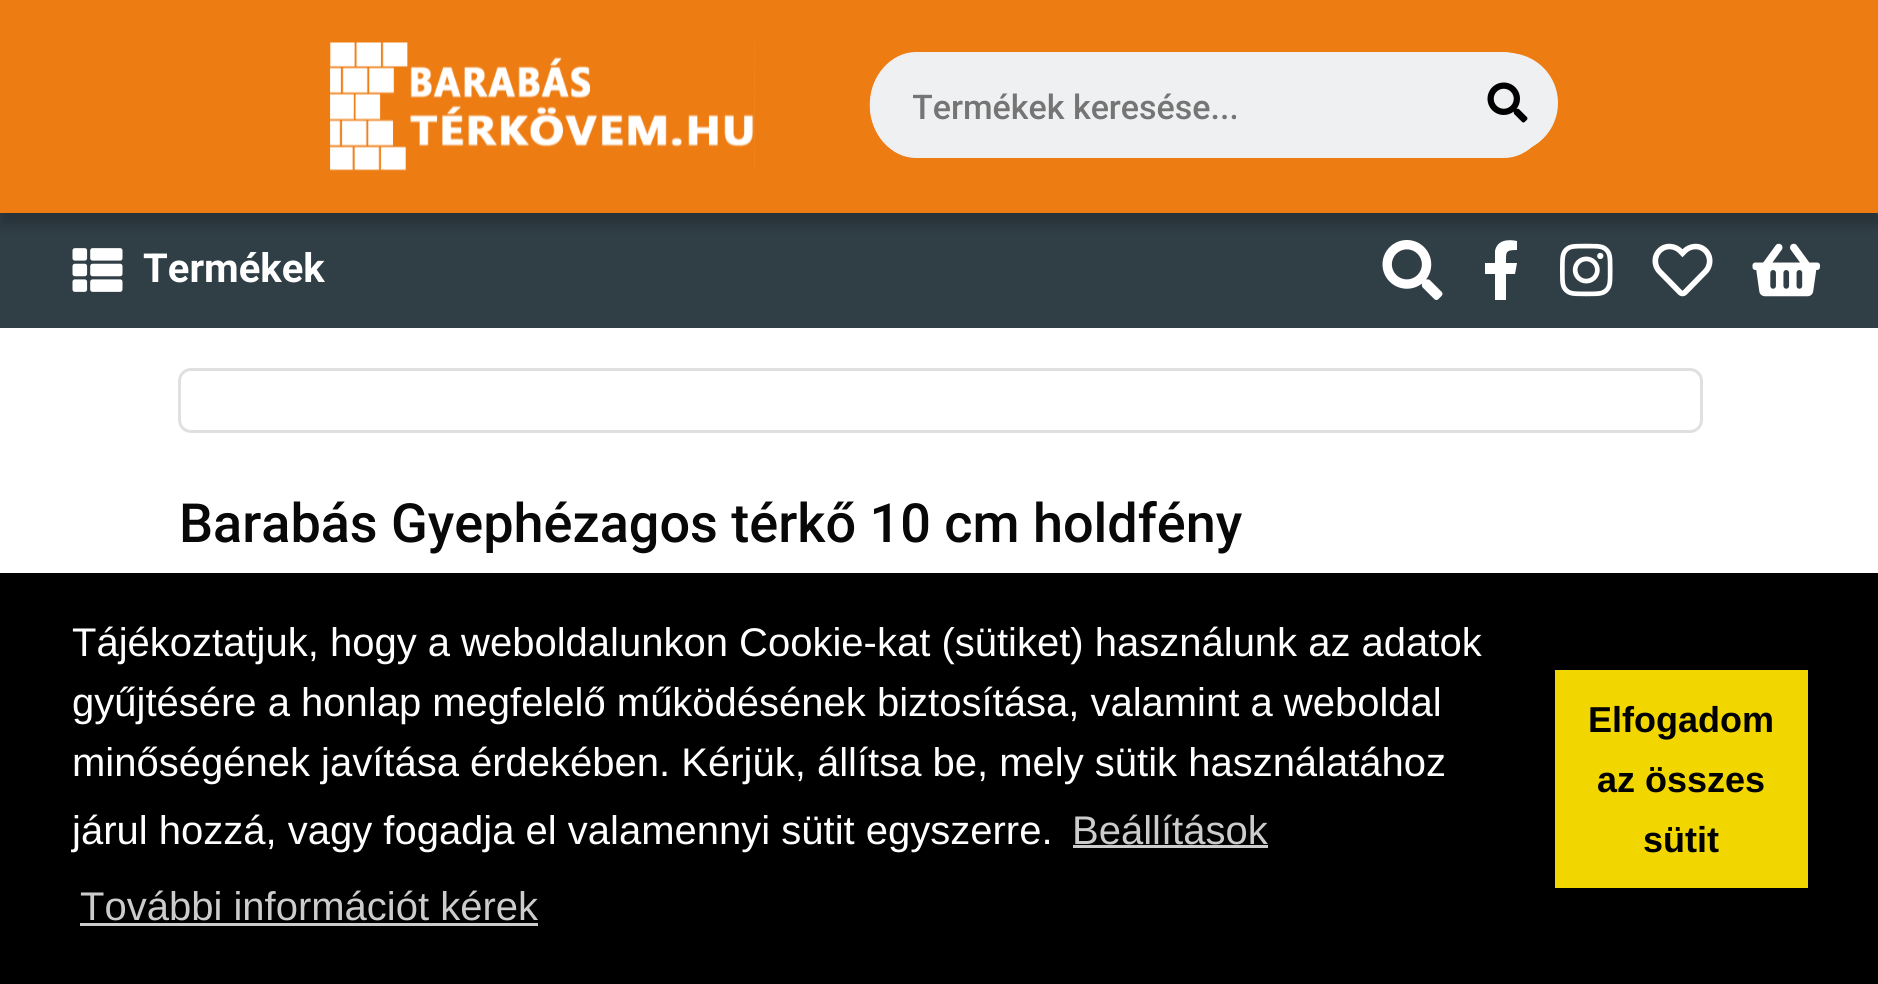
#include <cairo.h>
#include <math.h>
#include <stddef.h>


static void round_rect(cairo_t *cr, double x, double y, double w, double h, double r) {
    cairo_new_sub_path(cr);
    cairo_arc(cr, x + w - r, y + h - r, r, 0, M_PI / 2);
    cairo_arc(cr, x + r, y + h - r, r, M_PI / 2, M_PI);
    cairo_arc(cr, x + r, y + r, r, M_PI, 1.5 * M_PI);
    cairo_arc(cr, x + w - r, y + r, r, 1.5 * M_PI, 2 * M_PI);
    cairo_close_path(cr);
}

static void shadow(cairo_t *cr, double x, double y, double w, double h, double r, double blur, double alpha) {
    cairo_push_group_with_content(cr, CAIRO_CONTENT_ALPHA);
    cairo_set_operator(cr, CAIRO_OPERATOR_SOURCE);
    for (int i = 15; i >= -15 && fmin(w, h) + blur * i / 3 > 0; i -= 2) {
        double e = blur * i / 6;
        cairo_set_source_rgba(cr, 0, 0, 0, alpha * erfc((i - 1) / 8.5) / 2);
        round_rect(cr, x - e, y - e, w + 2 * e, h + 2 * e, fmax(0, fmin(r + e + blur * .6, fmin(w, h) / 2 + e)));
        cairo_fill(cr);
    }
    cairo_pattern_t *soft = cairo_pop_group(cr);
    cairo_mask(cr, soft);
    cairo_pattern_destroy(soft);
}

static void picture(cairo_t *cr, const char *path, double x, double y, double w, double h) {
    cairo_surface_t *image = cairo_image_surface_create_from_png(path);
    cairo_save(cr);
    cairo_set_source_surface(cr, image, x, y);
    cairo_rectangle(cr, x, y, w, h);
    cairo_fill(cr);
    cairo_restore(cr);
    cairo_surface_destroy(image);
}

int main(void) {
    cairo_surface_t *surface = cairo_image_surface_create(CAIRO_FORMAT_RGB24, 1878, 984);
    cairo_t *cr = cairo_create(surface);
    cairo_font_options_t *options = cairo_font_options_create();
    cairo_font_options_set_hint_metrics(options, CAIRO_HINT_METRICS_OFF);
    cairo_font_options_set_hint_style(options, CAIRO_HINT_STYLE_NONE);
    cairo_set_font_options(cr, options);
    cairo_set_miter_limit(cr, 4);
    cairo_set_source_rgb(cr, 1, 1, 1);
    cairo_paint(cr);
    cairo_set_source_rgb(cr, 0.929, 0.486, 0.078);
    cairo_rectangle(cr, 0, 0, 1878, 213);
    cairo_fill(cr);
    cairo_set_source_rgb(cr, 0.188, 0.243, 0.275);
    cairo_rectangle(cr, 0, 213, 1878, 115);
    cairo_fill(cr);
    cairo_save(cr);
    cairo_set_fill_rule(cr, CAIRO_FILL_RULE_EVEN_ODD);
    cairo_new_path(cr);
    cairo_move_to(cr, 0, 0);
    cairo_line_to(cr, 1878, 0);
    cairo_line_to(cr, 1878, 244);
    cairo_line_to(cr, 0, 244);
    cairo_close_path(cr);
    cairo_move_to(cr, 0, 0);
    cairo_line_to(cr, 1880, 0);
    cairo_line_to(cr, 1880, 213);
    cairo_line_to(cr, 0, 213);
    cairo_close_path(cr);
    cairo_clip(cr);
    cairo_set_source_rgb(cr, 0, 0, 0);
    shadow(cr, 0, 13, 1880, 212, 0, 6, 0.2);
    cairo_restore(cr);
    picture(cr, "img1.png", 330, 42, 425, 129);
    cairo_set_source_rgb(cr, 0.937, 0.941, 0.945);
    cairo_new_path(cr);
    cairo_move_to(cr, 916, 52);
    cairo_line_to(cr, 1504, 52);
    cairo_curve_to(cr, 1529, 52, 1550, 76, 1550, 105);
    cairo_curve_to(cr, 1550, 134, 1529, 158, 1504, 158);
    cairo_line_to(cr, 916, 158);
    cairo_curve_to(cr, 891, 158, 870, 134, 870, 105);
    cairo_curve_to(cr, 870, 76, 891, 52, 916, 52);
    cairo_close_path(cr);
    cairo_fill(cr);
    cairo_new_path(cr);
    cairo_move_to(cr, 916, 54);
    cairo_line_to(cr, 1504, 54);
    cairo_curve_to(cr, 1528.5, 54, 1549, 76.5, 1549, 105);
    cairo_curve_to(cr, 1549, 133.5, 1528.5, 156, 1504, 156);
    cairo_line_to(cr, 916, 156);
    cairo_curve_to(cr, 891.5, 156, 871, 133.5, 871, 105);
    cairo_curve_to(cr, 871, 76.5, 891.5, 54, 916, 54);
    cairo_close_path(cr);
    cairo_set_source_rgb(cr, 0.937, 0.937, 0.937);
    cairo_set_line_width(cr, 2.5);
    cairo_stroke(cr);
    cairo_save(cr);
    cairo_rectangle(cr, 913, 85, 595, 40);
    cairo_clip(cr);
    cairo_select_font_face(cr, "Roboto Medium", CAIRO_FONT_SLANT_NORMAL, CAIRO_FONT_WEIGHT_NORMAL);
    cairo_set_font_size(cr, 34);
    cairo_set_source_rgb(cr, 0.459, 0.459, 0.459);
    cairo_move_to(cr, 912, 119);
    cairo_show_text(cr, "Termékek keresése...");
    cairo_restore(cr);
    cairo_set_source_rgb(cr, 0.937, 0.941, 0.945);
    cairo_new_path(cr);
    cairo_arc(cr, 1508, 103, 50, 0, 2 * M_PI);
    cairo_fill(cr);
    picture(cr, "img2.png", 1487, 82, 41, 41);
    picture(cr, "img3.png", 72, 248, 51, 44);
    cairo_select_font_face(cr, "Roboto", CAIRO_FONT_SLANT_NORMAL, CAIRO_FONT_WEIGHT_BOLD);
    cairo_set_font_size(cr, 40);
    cairo_set_source_rgb(cr, 1, 1, 1);
    cairo_move_to(cr, 143, 282);
    cairo_show_text(cr, "Termékek");
    picture(cr, "img4.png", 1382, 240, 61, 60);
    cairo_new_path(cr);
    cairo_move_to(cr, 1515, 274);
    cairo_line_to(cr, 1517, 263);
    cairo_line_to(cr, 1506, 263);
    cairo_curve_to(cr, 1506, 252, 1505, 250, 1517, 250);
    cairo_line_to(cr, 1517, 241);
    cairo_curve_to(cr, 1508, 239, 1497, 240, 1495, 251);
    cairo_line_to(cr, 1495, 263);
    cairo_line_to(cr, 1485, 263);
    cairo_line_to(cr, 1485, 274);
    cairo_line_to(cr, 1495, 274);
    cairo_line_to(cr, 1495, 300);
    cairo_line_to(cr, 1506, 300);
    cairo_line_to(cr, 1506, 274);
    cairo_close_path(cr);
    cairo_fill(cr);
    picture(cr, "img5.png", 1560, 243, 53, 54);
    picture(cr, "img6.png", 1652, 243, 61, 54);
    picture(cr, "img7.png", 1752, 243, 68, 54);
    round_rect(cr, 179.5, 369.5, 1522, 62, 11.5);
    cairo_set_source_rgb(cr, 0.878, 0.878, 0.878);
    cairo_set_line_width(cr, 3);
    cairo_stroke(cr);
    cairo_select_font_face(cr, "Roboto Medium", CAIRO_FONT_SLANT_NORMAL, CAIRO_FONT_WEIGHT_NORMAL);
    cairo_set_font_size(cr, 54);
    cairo_set_source_rgb(cr, 0.039, 0.035, 0.035);
    cairo_move_to(cr, 179, 542);
    cairo_show_text(cr, "Barabás Gyephézagos térkő 10 cm holdfény");
    cairo_set_source_rgb(cr, 0, 0, 0);
    cairo_rectangle(cr, 0, 573, 1878, 411);
    cairo_fill(cr);
    cairo_select_font_face(cr, "Liberation Sans", CAIRO_FONT_SLANT_NORMAL, CAIRO_FONT_WEIGHT_NORMAL);
    cairo_set_font_size(cr, 40);
    cairo_set_source_rgb(cr, 1, 1, 1);
    cairo_move_to(cr, 72, 656);
    cairo_show_text(cr, "Tájékoztatjuk, hogy a weboldalunkon Cookie-kat (sütiket) használunk az adatok");
    cairo_move_to(cr, 72, 716);
    cairo_show_text(cr, "gyűjtésére a honlap megfelelő működésének biztosítása, valamint a weboldal");
    cairo_move_to(cr, 72, 776);
    cairo_show_text(cr, "minőségének javítása érdekében. Kérjük, állítsa be, mely sütik használatához");
    cairo_move_to(cr, 72, 844);
    cairo_show_text(cr, "járul hozzá, vagy fogadja el valamennyi sütit egyszerre.");
    cairo_set_source_rgb(cr, 0.8, 0.8, 0.8);
    cairo_move_to(cr, 1072, 844);
    cairo_show_text(cr, "Beállítások");
    cairo_rectangle(cr, 1073, 845, 195, 3);
    cairo_fill(cr);
    cairo_move_to(cr, 80, 920);
    cairo_show_text(cr, "További információt kérek");
    cairo_rectangle(cr, 80, 923, 458, 3);
    cairo_fill(cr);
    cairo_set_source_rgb(cr, 0.945, 0.839, 0);
    cairo_rectangle(cr, 1555, 670, 253, 218);
    cairo_fill(cr);
    cairo_select_font_face(cr, "Liberation Sans", CAIRO_FONT_SLANT_NORMAL, CAIRO_FONT_WEIGHT_BOLD);
    cairo_set_font_size(cr, 36);
    cairo_set_source_rgb(cr, 0, 0, 0);
    cairo_move_to(cr, 1588, 732);
    cairo_show_text(cr, "Elfogadom");
    cairo_move_to(cr, 1597, 792);
    cairo_show_text(cr, "az összes");
    cairo_move_to(cr, 1643, 852);
    cairo_show_text(cr, "sütit");
    cairo_surface_write_to_png(surface, "page.png");
    cairo_font_options_destroy(options);
    cairo_destroy(cr);
    cairo_surface_destroy(surface);
    return 0;
}
